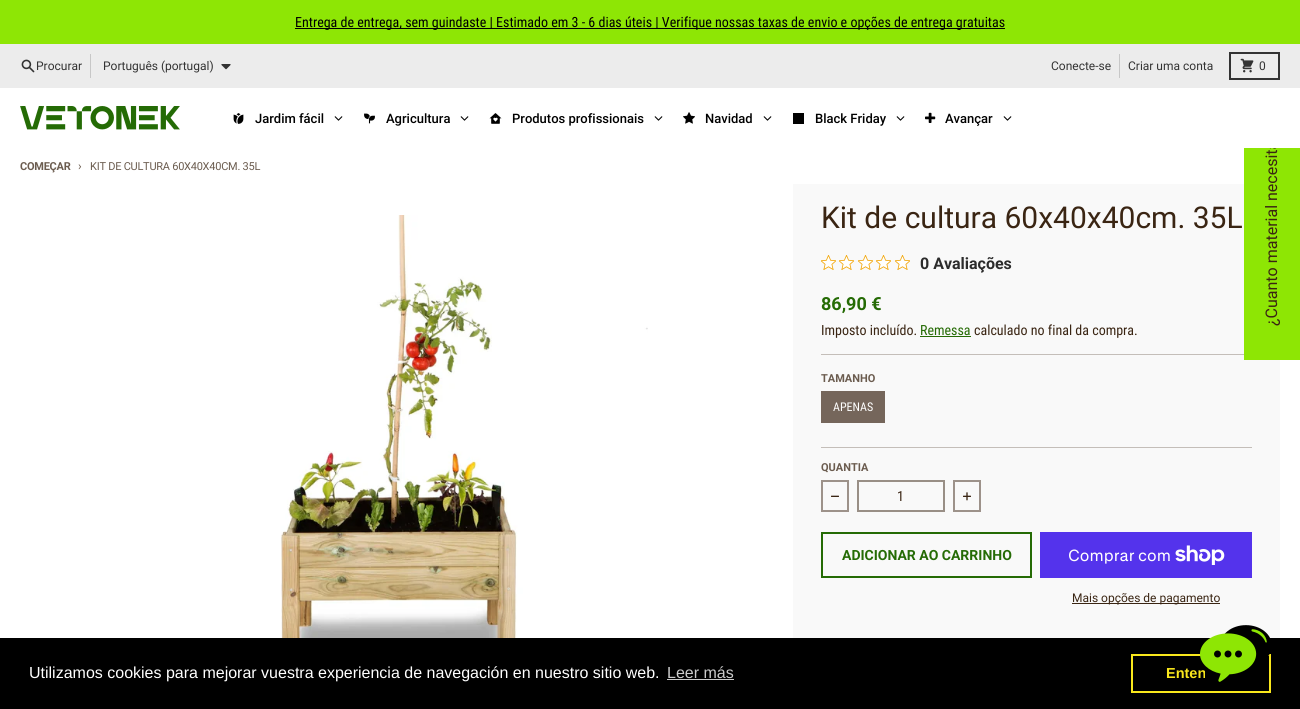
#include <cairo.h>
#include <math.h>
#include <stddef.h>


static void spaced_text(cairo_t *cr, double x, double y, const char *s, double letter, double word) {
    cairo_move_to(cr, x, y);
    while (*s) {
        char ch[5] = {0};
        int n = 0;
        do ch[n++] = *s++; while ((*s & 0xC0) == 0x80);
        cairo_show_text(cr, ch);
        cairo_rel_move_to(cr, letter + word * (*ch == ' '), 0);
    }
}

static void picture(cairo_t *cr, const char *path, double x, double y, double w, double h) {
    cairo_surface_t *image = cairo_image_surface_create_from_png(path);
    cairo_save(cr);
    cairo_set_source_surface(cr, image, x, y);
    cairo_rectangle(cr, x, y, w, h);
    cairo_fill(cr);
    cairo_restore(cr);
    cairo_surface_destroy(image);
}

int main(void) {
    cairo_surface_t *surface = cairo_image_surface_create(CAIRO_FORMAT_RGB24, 1300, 709);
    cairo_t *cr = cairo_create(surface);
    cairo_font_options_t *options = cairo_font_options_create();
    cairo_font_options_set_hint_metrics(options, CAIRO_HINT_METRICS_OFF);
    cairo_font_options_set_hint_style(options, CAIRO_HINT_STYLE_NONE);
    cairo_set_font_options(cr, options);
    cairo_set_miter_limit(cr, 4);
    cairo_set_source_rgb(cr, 1, 1, 1);
    cairo_paint(cr);
    cairo_set_source_rgb(cr, 0.557, 0.902, 0.02);
    cairo_rectangle(cr, 0, 0, 1300, 44);
    cairo_fill(cr);
    cairo_set_source_rgb(cr, 0, 0, 0);
    cairo_rectangle(cr, 295, 28, 710, 1);
    cairo_fill(cr);
    cairo_select_font_face(cr, "Roboto Condensed", CAIRO_FONT_SLANT_NORMAL, CAIRO_FONT_WEIGHT_NORMAL);
    cairo_set_font_size(cr, 14);
    cairo_move_to(cr, 295, 27);
    cairo_show_text(cr, "Entrega de entrega, sem guindaste | Estimado em 3 - 6 dias úteis | Verifique nossas taxas de envio e opções de entrega gratuitas");
    cairo_set_source_rgb(cr, 0.925, 0.925, 0.925);
    cairo_rectangle(cr, 0, 44, 1300, 44);
    cairo_fill(cr);
    picture(cr, "img1.png", 21, 59, 14, 14);
    cairo_select_font_face(cr, "Roboto", CAIRO_FONT_SLANT_NORMAL, CAIRO_FONT_WEIGHT_NORMAL);
    cairo_set_font_size(cr, 12);
    cairo_set_source_rgb(cr, 0.2, 0.2, 0.2);
    cairo_move_to(cr, 36, 70);
    cairo_show_text(cr, "Procurar");
    cairo_set_source_rgb(cr, 0.78, 0.78, 0.78);
    cairo_rectangle(cr, 90, 54, 1, 24);
    cairo_fill(cr);
    cairo_set_source_rgb(cr, 0.2, 0.2, 0.2);
    cairo_move_to(cr, 103, 70);
    cairo_show_text(cr, "Português (portugal)");
    picture(cr, "img2.png", 221, 64, 10, 6);
    cairo_move_to(cr, 1051, 70);
    cairo_show_text(cr, "Conecte-se");
    cairo_set_source_rgb(cr, 0.78, 0.78, 0.78);
    cairo_rectangle(cr, 1119, 54, 1, 24);
    cairo_fill(cr);
    cairo_set_source_rgb(cr, 0.2, 0.2, 0.2);
    cairo_move_to(cr, 1128, 70);
    cairo_show_text(cr, "Criar uma conta");
    cairo_rectangle(cr, 1230, 53, 49, 26);
    cairo_stroke(cr);
    picture(cr, "img3.png", 1240, 58, 14, 15);
    cairo_move_to(cr, 1259, 70);
    cairo_show_text(cr, "0");
    cairo_set_source_rgb(cr, 0.973, 0.973, 0.973);
    cairo_rectangle(cr, 793, 184, 487, 454);
    cairo_fill(cr);
    cairo_set_source_rgb(cr, 0.769, 0.745, 0.725);
    cairo_rectangle(cr, 821, 354, 431, 1);
    cairo_fill(cr);
    cairo_set_source_rgb(cr, 0.557, 0.902, 0.016);
    cairo_rectangle(cr, 1244, 148, 56, 212);
    cairo_fill(cr);
    cairo_set_font_size(cr, 16);
    cairo_set_source_rgb(cr, 0.227, 0.145, 0.078);
    cairo_save(cr);
    cairo_translate(cr, 1277, 326);
    cairo_rotate(cr, -90 * M_PI / 180);
    cairo_move_to(cr, 0, 0);
    cairo_show_text(cr, "¿Cuanto material necesitas?");
    cairo_restore(cr);
    cairo_set_source_rgb(cr, 1, 1, 1);
    cairo_rectangle(cr, 1265, 125, 13, 23);
    cairo_fill(cr);
    picture(cr, "img4.png", 20, 106, 160, 24);
    picture(cr, "img5.png", 233, 113, 11, 11);
    cairo_select_font_face(cr, "Roboto Medium", CAIRO_FONT_SLANT_NORMAL, CAIRO_FONT_WEIGHT_NORMAL);
    cairo_set_font_size(cr, 13);
    cairo_set_source_rgb(cr, 0, 0, 0);
    cairo_move_to(cr, 255, 123);
    cairo_show_text(cr, "Jardim fácil");
    picture(cr, "img6.png", 334, 116, 9, 5);
    picture(cr, "img7.png", 364, 113, 11, 11);
    cairo_move_to(cr, 386, 123);
    cairo_show_text(cr, "Agricultura");
    picture(cr, "img6.png", 460, 116, 9, 5);
    picture(cr, "img8.png", 489, 113, 13, 11);
    cairo_move_to(cr, 512, 123);
    cairo_show_text(cr, "Produtos profissionais");
    picture(cr, "img6.png", 654, 116, 9, 5);
    picture(cr, "img9.png", 683, 112, 12, 12);
    cairo_move_to(cr, 705, 123);
    cairo_show_text(cr, "Navidad");
    picture(cr, "img6.png", 763, 116, 9, 5);
    cairo_rectangle(cr, 793, 113, 11, 11);
    cairo_fill(cr);
    cairo_move_to(cr, 815, 123);
    cairo_show_text(cr, "Black Friday");
    picture(cr, "img6.png", 896, 116, 9, 5);
    picture(cr, "img10.png", 925, 112, 11, 11);
    cairo_move_to(cr, 945, 123);
    cairo_show_text(cr, "Avançar");
    picture(cr, "img6.png", 1003, 116, 9, 5);
    cairo_select_font_face(cr, "Roboto", CAIRO_FONT_SLANT_NORMAL, CAIRO_FONT_WEIGHT_BOLD);
    cairo_set_font_size(cr, 11);
    cairo_set_source_rgb(cr, 0.42, 0.361, 0.31);
    spaced_text(cr, 20, 170, "COMEÇAR", -0.25, 0);
    cairo_select_font_face(cr, "Roboto", CAIRO_FONT_SLANT_NORMAL, CAIRO_FONT_WEIGHT_NORMAL);
    cairo_set_font_size(cr, 12);
    spaced_text(cr, 78, 170, "›", -0.25, 0);
    cairo_set_font_size(cr, 11);
    spaced_text(cr, 90, 170, "KIT DE CULTURA 60X40X40CM. 35L", -0.25, 0);
    picture(cr, "img11.png", 278, 215, 370, 423);
    cairo_set_font_size(cr, 30);
    cairo_set_source_rgb(cr, 0.227, 0.145, 0.078);
    cairo_move_to(cr, 821, 228);
    cairo_show_text(cr, "Kit de cultura 60x40x40cm. 35L");
    picture(cr, "img12.png", 821, 255, 15, 15);
    picture(cr, "img12.png", 839, 255, 15, 15);
    picture(cr, "img12.png", 858, 255, 15, 15);
    picture(cr, "img12.png", 876, 255, 15, 15);
    picture(cr, "img12.png", 895, 255, 15, 15);
    cairo_select_font_face(cr, "Roboto", CAIRO_FONT_SLANT_NORMAL, CAIRO_FONT_WEIGHT_BOLD);
    cairo_set_font_size(cr, 16);
    cairo_set_source_rgb(cr, 0.173, 0.173, 0.173);
    cairo_move_to(cr, 920, 269);
    cairo_show_text(cr, "0 Avaliações");
    cairo_set_font_size(cr, 18);
    cairo_set_source_rgb(cr, 0.145, 0.42, 0.02);
    cairo_move_to(cr, 821, 310);
    cairo_show_text(cr, "86,90 €");
    cairo_select_font_face(cr, "Roboto Condensed", CAIRO_FONT_SLANT_NORMAL, CAIRO_FONT_WEIGHT_NORMAL);
    cairo_set_font_size(cr, 14);
    cairo_set_source_rgb(cr, 0.227, 0.145, 0.078);
    cairo_move_to(cr, 821, 335);
    cairo_show_text(cr, "Imposto incluído.");
    cairo_set_source_rgb(cr, 0.145, 0.42, 0.02);
    cairo_move_to(cr, 920, 335);
    cairo_show_text(cr, "Remessa");
    cairo_rectangle(cr, 920, 336, 51, 1);
    cairo_fill(cr);
    cairo_set_source_rgb(cr, 0.227, 0.145, 0.078);
    cairo_move_to(cr, 974, 335);
    cairo_show_text(cr, "calculado no final da compra.");
    cairo_set_source_rgb(cr, 0.769, 0.745, 0.725);
    cairo_rectangle(cr, 821, 447, 431, 1);
    cairo_fill(cr);
    cairo_select_font_face(cr, "Roboto", CAIRO_FONT_SLANT_NORMAL, CAIRO_FONT_WEIGHT_BOLD);
    cairo_set_font_size(cr, 11);
    cairo_set_source_rgb(cr, 0.42, 0.361, 0.31);
    cairo_move_to(cr, 821, 382);
    cairo_show_text(cr, "TAMANHO");
    cairo_set_source_rgb(cr, 0.459, 0.4, 0.357);
    cairo_rectangle(cr, 821, 391, 64, 32);
    cairo_fill(cr);
    cairo_select_font_face(cr, "Roboto Condensed", CAIRO_FONT_SLANT_NORMAL, CAIRO_FONT_WEIGHT_NORMAL);
    cairo_set_font_size(cr, 12);
    cairo_set_source_rgb(cr, 1, 1, 1);
    cairo_move_to(cr, 833, 411);
    cairo_show_text(cr, "APENAS");
    cairo_select_font_face(cr, "Roboto", CAIRO_FONT_SLANT_NORMAL, CAIRO_FONT_WEIGHT_BOLD);
    cairo_set_font_size(cr, 11);
    cairo_set_source_rgb(cr, 0.42, 0.361, 0.31);
    cairo_move_to(cr, 821, 471);
    cairo_show_text(cr, "QUANTIA");
    cairo_rectangle(cr, 822, 481, 26, 30);
    cairo_set_source_rgb(cr, 0.616, 0.573, 0.541);
    cairo_stroke(cr);
    picture(cr, "img13.png", 831, 495, 8, 2);
    cairo_rectangle(cr, 858, 481, 86, 30);
    cairo_set_source_rgb(cr, 0.6, 0.561, 0.525);
    cairo_stroke(cr);
    cairo_select_font_face(cr, "Roboto Condensed", CAIRO_FONT_SLANT_NORMAL, CAIRO_FONT_WEIGHT_NORMAL);
    cairo_set_font_size(cr, 14);
    cairo_set_source_rgb(cr, 0.227, 0.145, 0.078);
    cairo_move_to(cr, 897, 501);
    cairo_show_text(cr, "1");
    cairo_rectangle(cr, 954, 481, 26, 30);
    cairo_set_source_rgb(cr, 0.616, 0.573, 0.541);
    cairo_stroke(cr);
    picture(cr, "img14.png", 963, 492, 8, 9);
    cairo_rectangle(cr, 822, 533, 209, 44);
    cairo_set_source_rgb(cr, 0.145, 0.42, 0.02);
    cairo_stroke(cr);
    cairo_select_font_face(cr, "Roboto", CAIRO_FONT_SLANT_NORMAL, CAIRO_FONT_WEIGHT_BOLD);
    cairo_move_to(cr, 842, 560);
    cairo_show_text(cr, "ADICIONAR AO CARRINHO");
    cairo_set_source_rgb(cr, 0.329, 0.2, 0.922);
    cairo_rectangle(cr, 1040, 532, 212, 46);
    cairo_fill(cr);
    cairo_select_font_face(cr, "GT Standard", CAIRO_FONT_SLANT_NORMAL, CAIRO_FONT_WEIGHT_NORMAL);
    cairo_set_font_size(cr, 16);
    cairo_set_source_rgb(cr, 1, 1, 1);
    cairo_move_to(cr, 1068, 561);
    cairo_show_text(cr, "Comprar com");
    picture(cr, "img15.png", 1175, 545, 50, 20);
    cairo_set_source_rgb(cr, 0.227, 0.145, 0.078);
    cairo_rectangle(cr, 1072, 603, 148, 1);
    cairo_fill(cr);
    cairo_select_font_face(cr, "Roboto", CAIRO_FONT_SLANT_NORMAL, CAIRO_FONT_WEIGHT_NORMAL);
    cairo_set_font_size(cr, 12);
    cairo_move_to(cr, 1072, 602);
    cairo_show_text(cr, "Mais opções de pagamento");
    cairo_set_source_rgb(cr, 0, 0, 0);
    cairo_rectangle(cr, 0, 638, 1300, 71);
    cairo_fill(cr);
    cairo_select_font_face(cr, "Liberation Sans", CAIRO_FONT_SLANT_NORMAL, CAIRO_FONT_WEIGHT_NORMAL);
    cairo_set_font_size(cr, 16);
    cairo_set_source_rgb(cr, 1, 1, 1);
    cairo_move_to(cr, 29, 678);
    cairo_show_text(cr, "Utilizamos cookies para mejorar vuestra experiencia de navegación en nuestro sitio web.");
    cairo_set_source_rgb(cr, 0.8, 0.8, 0.8);
    cairo_move_to(cr, 667, 678);
    cairo_show_text(cr, "Leer más");
    cairo_rectangle(cr, 667, 679, 67, 1);
    cairo_fill(cr);
    cairo_rectangle(cr, 1132, 655, 138, 37);
    cairo_set_source_rgb(cr, 0.973, 0.906, 0.11);
    cairo_stroke(cr);
    cairo_select_font_face(cr, "Liberation Sans", CAIRO_FONT_SLANT_NORMAL, CAIRO_FONT_WEIGHT_BOLD);
    cairo_set_font_size(cr, 14.5);
    cairo_move_to(cr, 1166, 678);
    cairo_show_text(cr, "Enten");
    picture(cr, "img16.png", 1200, 625, 70, 57);
    cairo_surface_write_to_png(surface, "page.png");
    cairo_font_options_destroy(options);
    cairo_destroy(cr);
    cairo_surface_destroy(surface);
    return 0;
}
